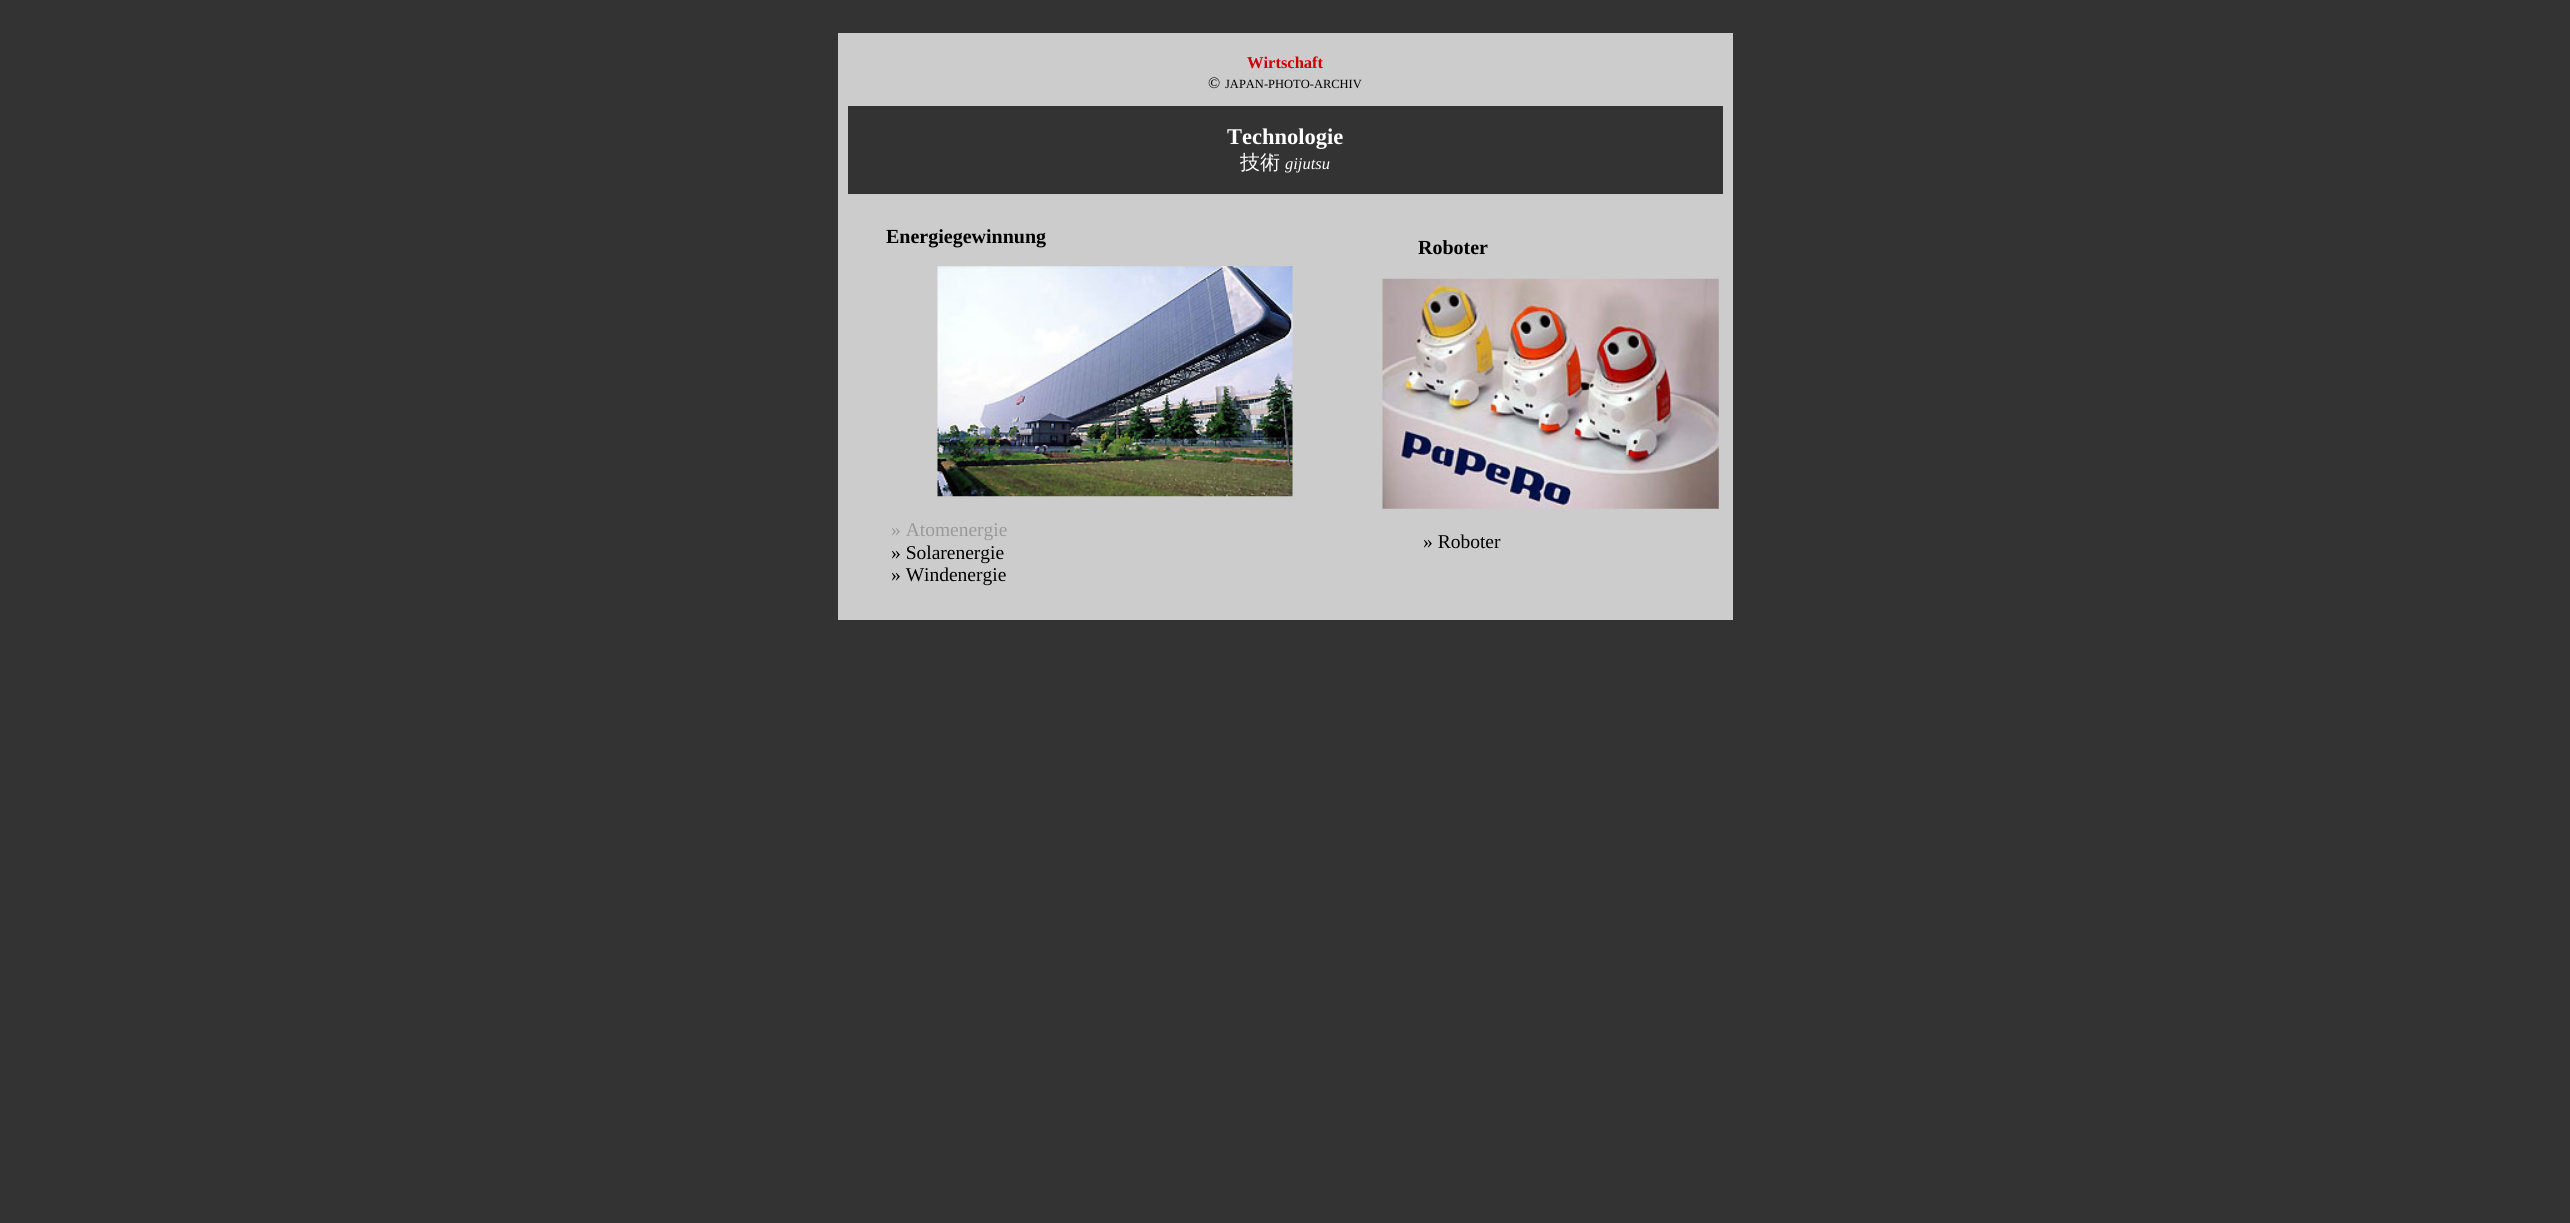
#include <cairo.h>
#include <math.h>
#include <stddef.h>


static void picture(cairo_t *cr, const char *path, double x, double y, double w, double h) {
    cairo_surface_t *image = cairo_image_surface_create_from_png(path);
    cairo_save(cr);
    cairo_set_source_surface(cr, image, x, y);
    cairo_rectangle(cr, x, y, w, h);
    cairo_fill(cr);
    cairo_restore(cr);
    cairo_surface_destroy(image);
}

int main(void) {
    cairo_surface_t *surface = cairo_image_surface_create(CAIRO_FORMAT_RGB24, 2570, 1223);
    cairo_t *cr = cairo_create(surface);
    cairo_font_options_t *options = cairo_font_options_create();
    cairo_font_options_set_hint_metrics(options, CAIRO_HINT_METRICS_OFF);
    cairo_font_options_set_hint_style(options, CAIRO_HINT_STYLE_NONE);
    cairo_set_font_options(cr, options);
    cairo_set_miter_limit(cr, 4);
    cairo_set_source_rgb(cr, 0.2, 0.2, 0.2);
    cairo_paint(cr);
    cairo_set_source_rgb(cr, 0.8, 0.8, 0.8);
    cairo_rectangle(cr, 838, 33, 895, 587);
    cairo_fill(cr);
    cairo_select_font_face(cr, "Liberation Serif", CAIRO_FONT_SLANT_NORMAL, CAIRO_FONT_WEIGHT_BOLD);
    cairo_set_font_size(cr, 16.5);
    cairo_set_source_rgb(cr, 0.8, 0, 0);
    cairo_move_to(cr, 1247, 68);
    cairo_show_text(cr, "Wirtschaft");
    cairo_select_font_face(cr, "Liberation Serif", CAIRO_FONT_SLANT_NORMAL, CAIRO_FONT_WEIGHT_NORMAL);
    cairo_set_font_size(cr, 16);
    cairo_set_source_rgb(cr, 0, 0, 0);
    cairo_move_to(cr, 1208, 88);
    cairo_show_text(cr, "©");
    cairo_set_font_size(cr, 12.5);
    cairo_move_to(cr, 1225, 88);
    cairo_show_text(cr, "JAPAN-PHOTO-ARCHIV");
    cairo_set_source_rgb(cr, 0.2, 0.2, 0.2);
    cairo_rectangle(cr, 848, 106, 875, 88);
    cairo_fill(cr);
    cairo_select_font_face(cr, "Liberation Serif", CAIRO_FONT_SLANT_NORMAL, CAIRO_FONT_WEIGHT_BOLD);
    cairo_set_font_size(cr, 22.5);
    cairo_set_source_rgb(cr, 1, 1, 1);
    cairo_move_to(cr, 1227, 144);
    cairo_show_text(cr, "Technologie");
    cairo_select_font_face(cr, "WenQuanYi Zen Hei Medium", CAIRO_FONT_SLANT_NORMAL, CAIRO_FONT_WEIGHT_NORMAL);
    cairo_set_font_size(cr, 20);
    cairo_move_to(cr, 1240, 169);
    cairo_show_text(cr, "技術");
    cairo_select_font_face(cr, "Liberation Serif", CAIRO_FONT_SLANT_ITALIC, CAIRO_FONT_WEIGHT_NORMAL);
    cairo_set_font_size(cr, 16.5);
    cairo_move_to(cr, 1285, 169);
    cairo_show_text(cr, "gijutsu");
    cairo_select_font_face(cr, "Liberation Serif", CAIRO_FONT_SLANT_NORMAL, CAIRO_FONT_WEIGHT_BOLD);
    cairo_set_font_size(cr, 20);
    cairo_set_source_rgb(cr, 0, 0, 0);
    cairo_move_to(cr, 886, 243);
    cairo_show_text(cr, "Energiegewinnung");
    picture(cr, "img1.png", 937, 266, 356, 231);
    cairo_select_font_face(cr, "Liberation Serif", CAIRO_FONT_SLANT_NORMAL, CAIRO_FONT_WEIGHT_NORMAL);
    cairo_set_font_size(cr, 19.5);
    cairo_set_source_rgb(cr, 0.6, 0.6, 0.6);
    cairo_move_to(cr, 891, 536);
    cairo_show_text(cr, "» Atomenergie");
    cairo_set_source_rgb(cr, 0, 0, 0);
    cairo_move_to(cr, 891, 559);
    cairo_show_text(cr, "» Solarenergie");
    cairo_move_to(cr, 891, 581);
    cairo_show_text(cr, "» Windenergie");
    cairo_select_font_face(cr, "Liberation Serif", CAIRO_FONT_SLANT_NORMAL, CAIRO_FONT_WEIGHT_BOLD);
    cairo_set_font_size(cr, 20);
    cairo_move_to(cr, 1418, 254);
    cairo_show_text(cr, "Roboter");
    picture(cr, "img2.png", 1382, 278, 337, 231);
    cairo_select_font_face(cr, "Liberation Serif", CAIRO_FONT_SLANT_NORMAL, CAIRO_FONT_WEIGHT_NORMAL);
    cairo_set_font_size(cr, 19.5);
    cairo_move_to(cr, 1423, 548);
    cairo_show_text(cr, "» Roboter");
    cairo_surface_write_to_png(surface, "page.png");
    cairo_font_options_destroy(options);
    cairo_destroy(cr);
    cairo_surface_destroy(surface);
    return 0;
}
